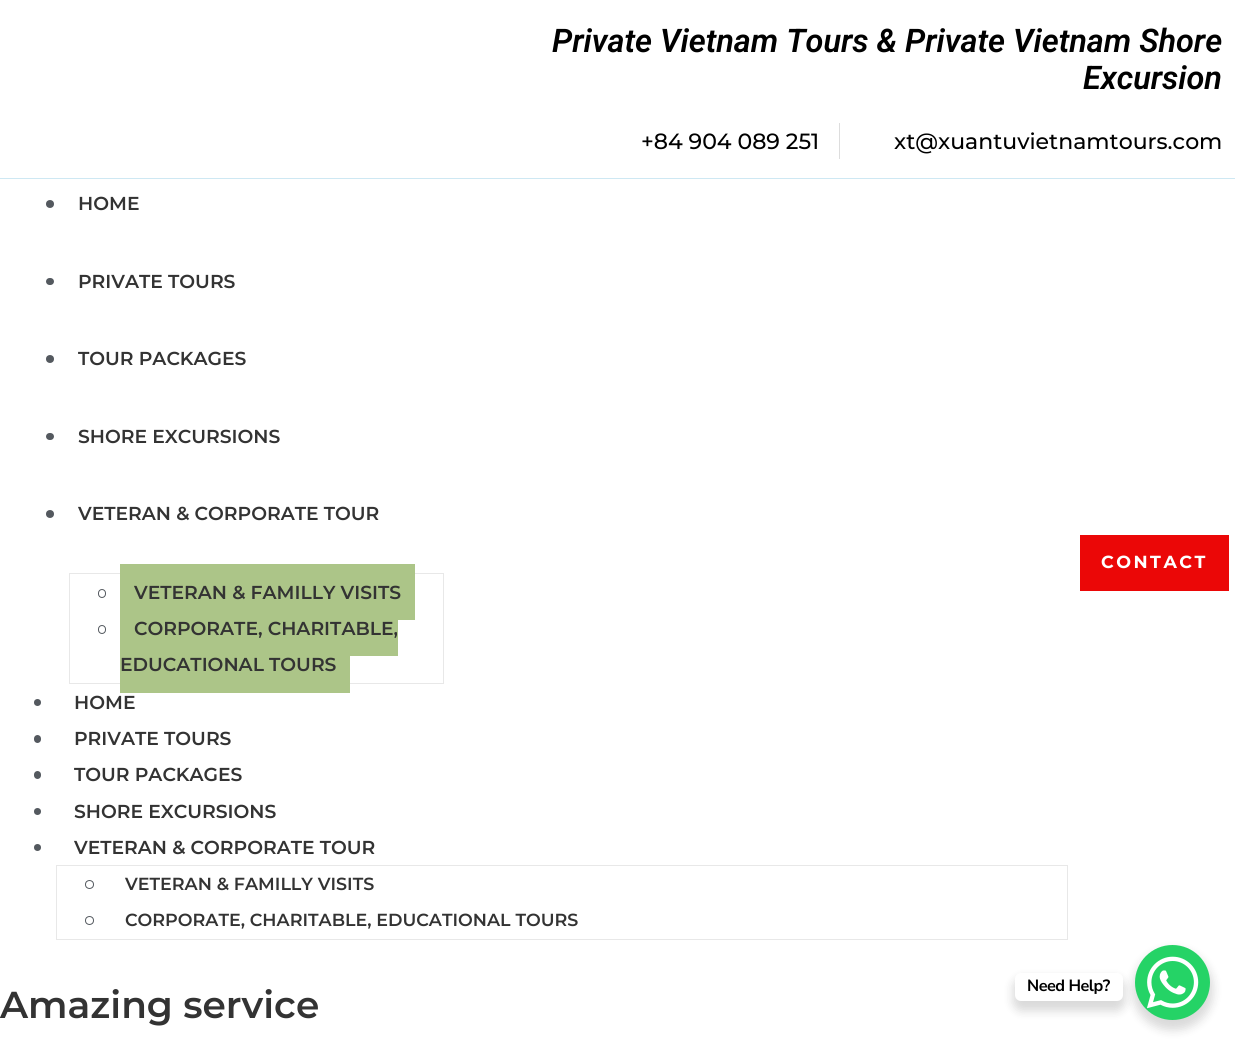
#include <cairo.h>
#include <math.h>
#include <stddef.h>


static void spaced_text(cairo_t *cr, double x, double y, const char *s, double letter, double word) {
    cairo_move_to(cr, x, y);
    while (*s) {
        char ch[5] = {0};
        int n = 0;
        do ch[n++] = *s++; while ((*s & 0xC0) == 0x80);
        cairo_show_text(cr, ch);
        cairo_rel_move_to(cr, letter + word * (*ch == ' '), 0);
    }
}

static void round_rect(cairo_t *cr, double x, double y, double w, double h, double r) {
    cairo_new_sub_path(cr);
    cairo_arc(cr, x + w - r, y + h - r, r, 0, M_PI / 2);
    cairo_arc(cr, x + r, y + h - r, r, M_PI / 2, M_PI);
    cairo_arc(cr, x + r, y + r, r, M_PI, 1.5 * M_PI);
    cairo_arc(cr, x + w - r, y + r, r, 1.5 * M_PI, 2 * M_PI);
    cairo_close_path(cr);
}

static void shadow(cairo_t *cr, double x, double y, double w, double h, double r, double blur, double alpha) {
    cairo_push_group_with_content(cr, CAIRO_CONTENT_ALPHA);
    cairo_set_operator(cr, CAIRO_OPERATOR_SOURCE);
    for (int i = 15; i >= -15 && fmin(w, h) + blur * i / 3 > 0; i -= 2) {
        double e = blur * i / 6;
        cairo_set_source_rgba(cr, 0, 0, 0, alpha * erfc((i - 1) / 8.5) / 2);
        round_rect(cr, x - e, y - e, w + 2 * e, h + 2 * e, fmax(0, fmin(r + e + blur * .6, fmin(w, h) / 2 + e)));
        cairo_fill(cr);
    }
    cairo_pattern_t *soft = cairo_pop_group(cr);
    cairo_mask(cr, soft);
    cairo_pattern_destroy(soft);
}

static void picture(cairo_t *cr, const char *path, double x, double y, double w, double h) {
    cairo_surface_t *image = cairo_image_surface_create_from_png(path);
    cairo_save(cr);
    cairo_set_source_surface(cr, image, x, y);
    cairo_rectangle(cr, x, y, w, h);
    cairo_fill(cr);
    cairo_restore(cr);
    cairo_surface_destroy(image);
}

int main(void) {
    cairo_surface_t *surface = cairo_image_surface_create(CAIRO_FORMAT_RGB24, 1235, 1044);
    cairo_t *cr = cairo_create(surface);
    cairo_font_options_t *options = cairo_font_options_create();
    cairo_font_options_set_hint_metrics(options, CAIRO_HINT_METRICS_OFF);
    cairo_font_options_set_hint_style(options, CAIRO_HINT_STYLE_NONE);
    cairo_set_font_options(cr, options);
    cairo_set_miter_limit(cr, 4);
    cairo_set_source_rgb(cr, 1, 1, 1);
    cairo_paint(cr);
    cairo_select_font_face(cr, "Roboto SemiBold", CAIRO_FONT_SLANT_ITALIC, CAIRO_FONT_WEIGHT_NORMAL);
    cairo_set_font_size(cr, 32.5);
    cairo_set_source_rgb(cr, 0, 0, 0);
    cairo_move_to(cr, 552, 52);
    cairo_show_text(cr, "Private Vietnam Tours & Private Vietnam Shore");
    cairo_move_to(cr, 1083, 89);
    cairo_show_text(cr, "Excursion");
    cairo_select_font_face(cr, "Montserrat Medium", CAIRO_FONT_SLANT_NORMAL, CAIRO_FONT_WEIGHT_NORMAL);
    cairo_set_font_size(cr, 22);
    cairo_move_to(cr, 641, 149);
    cairo_show_text(cr, "+84 904 089 251");
    cairo_set_source_rgb(cr, 0.867, 0.867, 0.867);
    cairo_rectangle(cr, 839, 123, 1, 36);
    cairo_fill(cr);
    cairo_set_source_rgb(cr, 0, 0, 0);
    cairo_move_to(cr, 894, 149);
    cairo_show_text(cr, "xt@xuantuvietnamtours.com");
    cairo_set_source_rgb(cr, 0.808, 0.91, 0.953);
    cairo_rectangle(cr, 0, 178, 1235, 1);
    cairo_fill(cr);
    cairo_set_source_rgb(cr, 0.329, 0.349, 0.373);
    cairo_arc(cr, 50, 204, 4, 0, 2 * M_PI);
    cairo_fill(cr);
    cairo_select_font_face(cr, "Montserrat SemiBold", CAIRO_FONT_SLANT_NORMAL, CAIRO_FONT_WEIGHT_NORMAL);
    cairo_set_font_size(cr, 18.75);
    cairo_set_source_rgb(cr, 0.2, 0.2, 0.2);
    cairo_move_to(cr, 78, 210);
    cairo_show_text(cr, "HOME");
    cairo_set_source_rgb(cr, 0.329, 0.349, 0.373);
    round_rect(cr, 46, 278, 8, 7, 3.5);
    cairo_fill(cr);
    cairo_set_source_rgb(cr, 0.2, 0.2, 0.2);
    cairo_move_to(cr, 78, 288);
    cairo_show_text(cr, "PRIVATE TOURS");
    cairo_set_source_rgb(cr, 0.329, 0.349, 0.373);
    cairo_new_path(cr);
    cairo_arc(cr, 50, 359, 4, 0, 2 * M_PI);
    cairo_fill(cr);
    cairo_set_source_rgb(cr, 0.2, 0.2, 0.2);
    cairo_move_to(cr, 78, 365);
    cairo_show_text(cr, "TOUR PACKAGES");
    cairo_set_source_rgb(cr, 0.329, 0.349, 0.373);
    round_rect(cr, 46, 433, 8, 7, 3.5);
    cairo_fill(cr);
    cairo_set_source_rgb(cr, 0.2, 0.2, 0.2);
    cairo_move_to(cr, 78, 443);
    cairo_show_text(cr, "SHORE EXCURSIONS");
    cairo_set_source_rgb(cr, 0.329, 0.349, 0.373);
    cairo_new_path(cr);
    cairo_arc(cr, 50, 514, 4, 0, 2 * M_PI);
    cairo_fill(cr);
    cairo_set_source_rgb(cr, 0.2, 0.2, 0.2);
    cairo_move_to(cr, 78, 520);
    cairo_show_text(cr, "VETERAN & CORPORATE TOUR");
    cairo_rectangle(cr, 69.5, 573.5, 374, 110);
    cairo_set_source_rgb(cr, 0.91, 0.91, 0.91);
    cairo_set_line_width(cr, 1);
    cairo_stroke(cr);
    round_rect(cr, 98.5, 589.5, 7, 8, 3.5);
    cairo_set_source_rgb(cr, 0.329, 0.349, 0.373);
    cairo_stroke(cr);
    cairo_set_source_rgb(cr, 0.675, 0.773, 0.533);
    cairo_rectangle(cr, 120, 564, 295, 56);
    cairo_fill(cr);
    cairo_set_source_rgb(cr, 0.2, 0.2, 0.2);
    cairo_move_to(cr, 134, 599);
    cairo_show_text(cr, "VETERAN & FAMILLY VISITS");
    round_rect(cr, 98.5, 625.5, 7, 8, 3.5);
    cairo_set_source_rgb(cr, 0.329, 0.349, 0.373);
    cairo_stroke(cr);
    cairo_set_source_rgb(cr, 0.675, 0.773, 0.533);
    cairo_rectangle(cr, 120, 620, 278, 36);
    cairo_fill(cr);
    cairo_set_source_rgb(cr, 0.2, 0.2, 0.2);
    cairo_move_to(cr, 134, 635);
    cairo_show_text(cr, "CORPORATE, CHARITABLE,");
    cairo_set_source_rgb(cr, 0.675, 0.773, 0.533);
    cairo_rectangle(cr, 120, 656, 230, 37);
    cairo_fill(cr);
    cairo_set_source_rgb(cr, 0.2, 0.2, 0.2);
    cairo_move_to(cr, 120, 671);
    cairo_show_text(cr, "EDUCATIONAL TOURS");
    cairo_set_source_rgb(cr, 0.329, 0.349, 0.373);
    cairo_new_path(cr);
    cairo_arc(cr, 37.5, 702.5, 3.5, 0, 2 * M_PI);
    cairo_fill(cr);
    cairo_set_source_rgb(cr, 0.2, 0.2, 0.2);
    cairo_move_to(cr, 74, 709);
    cairo_show_text(cr, "HOME");
    cairo_set_source_rgb(cr, 0.329, 0.349, 0.373);
    round_rect(cr, 34, 735, 7, 8, 3.5);
    cairo_fill(cr);
    cairo_set_source_rgb(cr, 0.2, 0.2, 0.2);
    cairo_move_to(cr, 74, 745);
    cairo_show_text(cr, "PRIVATE TOURS");
    cairo_set_source_rgb(cr, 0.329, 0.349, 0.373);
    round_rect(cr, 34, 771, 7, 8, 3.5);
    cairo_fill(cr);
    cairo_set_source_rgb(cr, 0.2, 0.2, 0.2);
    cairo_move_to(cr, 74, 781);
    cairo_show_text(cr, "TOUR PACKAGES");
    cairo_set_source_rgb(cr, 0.329, 0.349, 0.373);
    cairo_new_path(cr);
    cairo_arc(cr, 37.5, 811.5, 3.5, 0, 2 * M_PI);
    cairo_fill(cr);
    cairo_set_source_rgb(cr, 0.2, 0.2, 0.2);
    cairo_move_to(cr, 74, 818);
    cairo_show_text(cr, "SHORE EXCURSIONS");
    cairo_set_source_rgb(cr, 0.329, 0.349, 0.373);
    cairo_new_path(cr);
    cairo_arc(cr, 37.5, 847.5, 3.5, 0, 2 * M_PI);
    cairo_fill(cr);
    cairo_set_source_rgb(cr, 0.2, 0.2, 0.2);
    cairo_move_to(cr, 74, 854);
    cairo_show_text(cr, "VETERAN & CORPORATE TOUR");
    cairo_rectangle(cr, 56.5, 865.5, 1011, 74);
    cairo_set_source_rgb(cr, 0.91, 0.91, 0.91);
    cairo_stroke(cr);
    cairo_arc(cr, 89.5, 884.5, 4, 0, 2 * M_PI);
    cairo_set_source_rgb(cr, 0.329, 0.349, 0.373);
    cairo_stroke(cr);
    cairo_set_font_size(cr, 17.5);
    cairo_set_source_rgb(cr, 0.2, 0.2, 0.2);
    cairo_move_to(cr, 125, 890);
    cairo_show_text(cr, "VETERAN & FAMILLY VISITS");
    cairo_new_path(cr);
    cairo_arc(cr, 89.5, 920.5, 4, 0, 2 * M_PI);
    cairo_set_source_rgb(cr, 0.329, 0.349, 0.373);
    cairo_stroke(cr);
    cairo_set_source_rgb(cr, 0.2, 0.2, 0.2);
    cairo_move_to(cr, 125, 926);
    cairo_show_text(cr, "CORPORATE, CHARITABLE, EDUCATIONAL TOURS");
    cairo_set_source_rgb(cr, 0.918, 0.031, 0.031);
    cairo_rectangle(cr, 1080, 535, 149, 56);
    cairo_fill(cr);
    cairo_select_font_face(cr, "Montserrat", CAIRO_FONT_SLANT_NORMAL, CAIRO_FONT_WEIGHT_BOLD);
    cairo_set_source_rgb(cr, 1, 1, 1);
    spaced_text(cr, 1101, 568, "CONTACT", 2.5, 0);
    cairo_set_source_rgb(cr, 0, 0, 0);
    shadow(cr, 1133, 950, 80, 80, 40, 5, 0.15);
    cairo_set_source_rgb(cr, 0.145, 0.827, 0.4);
    cairo_arc(cr, 1172.5, 982.5, 37.5, 0, 2 * M_PI);
    cairo_fill(cr);
    cairo_set_source_rgb(cr, 0, 0, 0);
    shadow(cr, 1013, 978, 112, 33, 9, 5, 0.15);
    cairo_set_source_rgb(cr, 1, 1, 1);
    round_rect(cr, 1015, 973, 108, 28, 6);
    cairo_fill(cr);
    cairo_select_font_face(cr, "Nunito Sans", CAIRO_FONT_SLANT_NORMAL, CAIRO_FONT_WEIGHT_BOLD);
    cairo_set_font_size(cr, 16.25);
    cairo_set_source_rgb(cr, 0, 0, 0);
    spaced_text(cr, 1027, 991, "Need Help?", -0.5, 0);
    picture(cr, "img1.png", 1147, 956, 52, 53);
    cairo_select_font_face(cr, "Montserrat SemiBold", CAIRO_FONT_SLANT_NORMAL, CAIRO_FONT_WEIGHT_NORMAL);
    cairo_set_font_size(cr, 37.5);
    cairo_set_source_rgb(cr, 0.2, 0.2, 0.2);
    cairo_move_to(cr, 0, 1018);
    cairo_show_text(cr, "Amazing service");
    cairo_surface_write_to_png(surface, "page.png");
    cairo_font_options_destroy(options);
    cairo_destroy(cr);
    cairo_surface_destroy(surface);
    return 0;
}
